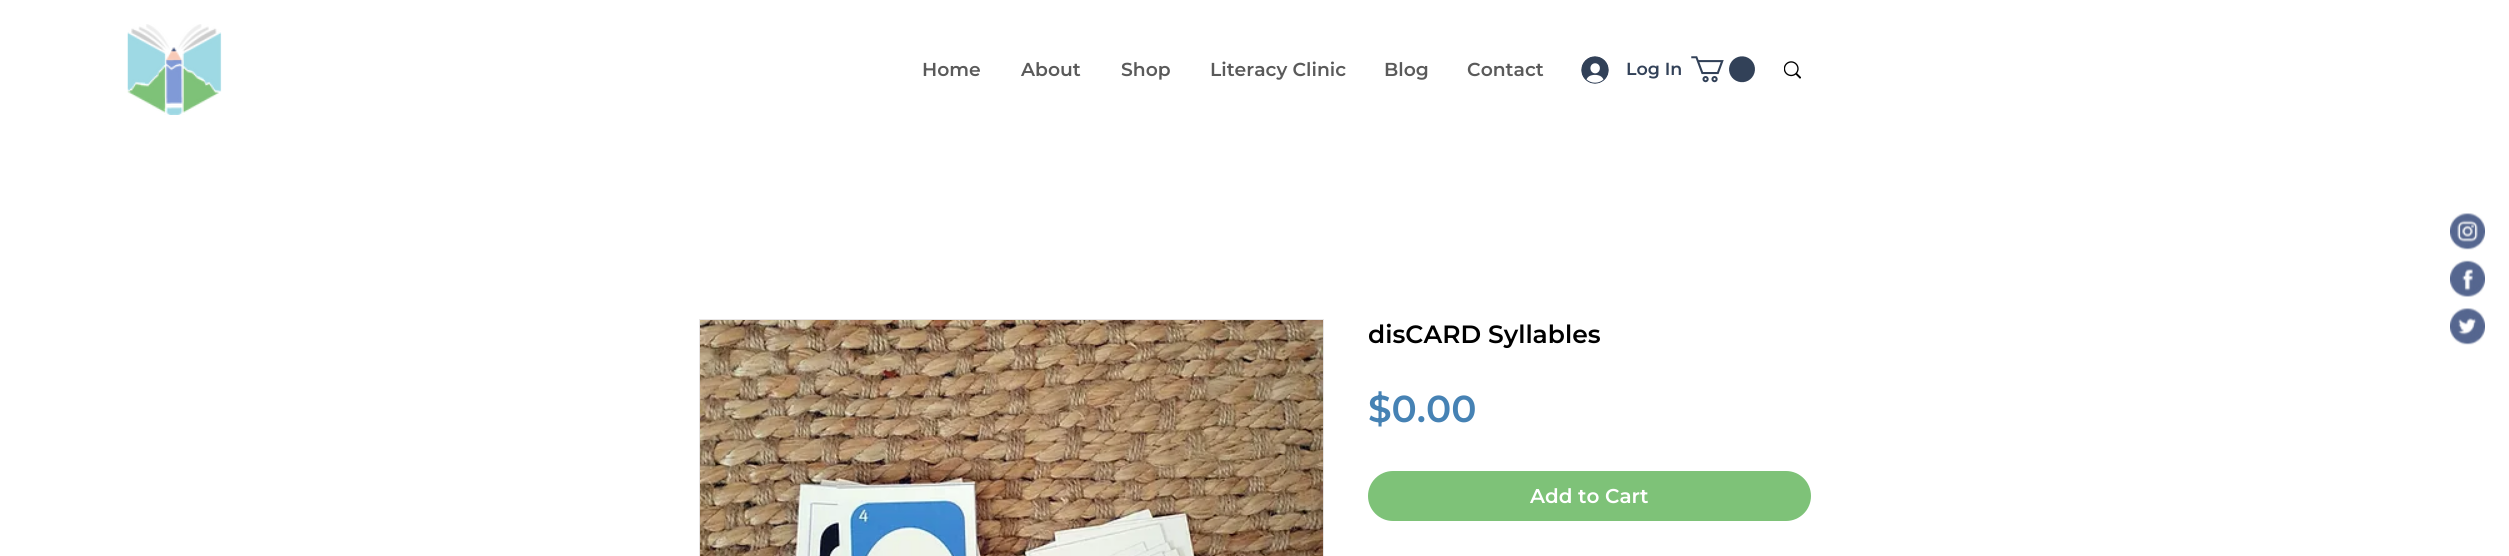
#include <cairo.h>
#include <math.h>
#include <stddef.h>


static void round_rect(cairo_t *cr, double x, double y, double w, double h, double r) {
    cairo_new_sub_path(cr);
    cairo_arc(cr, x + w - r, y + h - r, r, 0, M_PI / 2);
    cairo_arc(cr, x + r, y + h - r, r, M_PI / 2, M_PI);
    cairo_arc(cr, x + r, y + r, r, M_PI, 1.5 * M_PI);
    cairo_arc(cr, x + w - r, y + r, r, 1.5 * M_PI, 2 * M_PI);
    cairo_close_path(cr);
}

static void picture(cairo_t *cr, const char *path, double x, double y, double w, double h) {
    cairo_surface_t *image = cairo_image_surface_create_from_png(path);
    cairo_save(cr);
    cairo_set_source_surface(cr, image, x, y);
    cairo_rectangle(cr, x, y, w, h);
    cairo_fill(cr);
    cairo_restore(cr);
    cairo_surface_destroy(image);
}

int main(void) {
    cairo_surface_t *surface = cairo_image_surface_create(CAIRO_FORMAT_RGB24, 2509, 556);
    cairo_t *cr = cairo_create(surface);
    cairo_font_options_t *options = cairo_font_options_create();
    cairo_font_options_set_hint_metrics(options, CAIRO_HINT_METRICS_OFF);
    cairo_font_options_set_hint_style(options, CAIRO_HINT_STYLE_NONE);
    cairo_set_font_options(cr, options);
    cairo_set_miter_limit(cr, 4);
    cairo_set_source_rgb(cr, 1, 1, 1);
    cairo_paint(cr);
    picture(cr, "img1.png", 127, 24, 95, 91);
    cairo_select_font_face(cr, "Montserrat SemiBold", CAIRO_FONT_SLANT_NORMAL, CAIRO_FONT_WEIGHT_NORMAL);
    cairo_set_font_size(cr, 18.75);
    cairo_set_source_rgb(cr, 0.353, 0.353, 0.353);
    cairo_move_to(cr, 922, 76);
    cairo_show_text(cr, "Home");
    cairo_move_to(cr, 1021, 76);
    cairo_show_text(cr, "About");
    cairo_move_to(cr, 1121, 76);
    cairo_show_text(cr, "Shop");
    cairo_move_to(cr, 1210, 76);
    cairo_show_text(cr, "Literacy Clinic");
    cairo_move_to(cr, 1384, 76);
    cairo_show_text(cr, "Blog");
    cairo_move_to(cr, 1467, 76);
    cairo_show_text(cr, "Contact");
    picture(cr, "img2.png", 1581, 56, 28, 28);
    cairo_set_font_size(cr, 17.5);
    cairo_set_source_rgb(cr, 0.196, 0.255, 0.345);
    cairo_move_to(cr, 1626, 75);
    cairo_show_text(cr, "Log In");
    picture(cr, "img3.png", 1691, 56, 64, 27);
    picture(cr, "img4.png", 1784, 61, 17, 18);
    picture(cr, "img5.png", 2450, 213, 35, 37);
    picture(cr, "img6.png", 2450, 260, 35, 37);
    picture(cr, "img7.png", 2450, 308, 35, 37);
    cairo_rectangle(cr, 699.5, 319.5, 624, 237);
    cairo_set_source_rgb(cr, 0.91, 0.902, 0.902);
    cairo_set_line_width(cr, 1);
    cairo_stroke(cr);
    picture(cr, "img8.png", 700, 320, 623, 236);
    cairo_set_font_size(cr, 25);
    cairo_set_source_rgb(cr, 0, 0, 0);
    cairo_move_to(cr, 1368, 343);
    cairo_show_text(cr, "disCARD Syllables");
    cairo_set_font_size(cr, 37.5);
    cairo_set_source_rgb(cr, 0.275, 0.51, 0.706);
    cairo_move_to(cr, 1368, 422);
    cairo_show_text(cr, "$0.00");
    cairo_set_source_rgb(cr, 0.494, 0.761, 0.471);
    round_rect(cr, 1368, 471, 443, 50, 25);
    cairo_fill(cr);
    cairo_set_font_size(cr, 20);
    cairo_set_source_rgb(cr, 1, 1, 1);
    cairo_move_to(cr, 1530, 503);
    cairo_show_text(cr, "Add to Cart");
    cairo_surface_write_to_png(surface, "page.png");
    cairo_font_options_destroy(options);
    cairo_destroy(cr);
    cairo_surface_destroy(surface);
    return 0;
}
